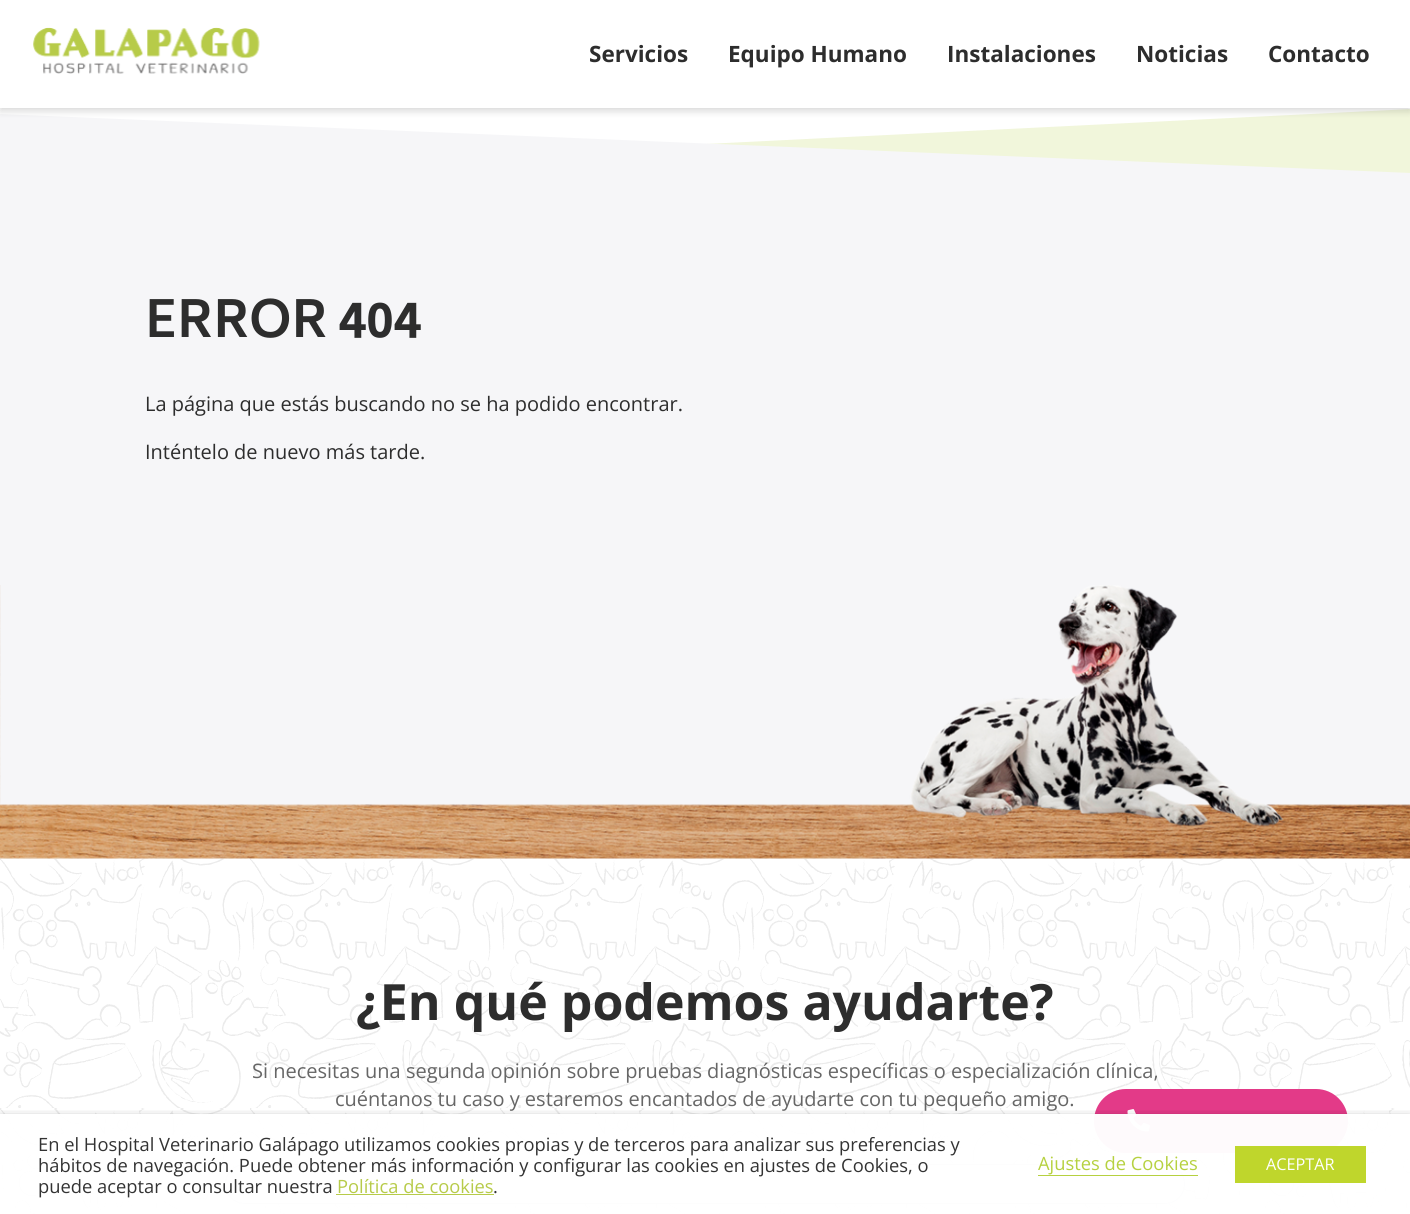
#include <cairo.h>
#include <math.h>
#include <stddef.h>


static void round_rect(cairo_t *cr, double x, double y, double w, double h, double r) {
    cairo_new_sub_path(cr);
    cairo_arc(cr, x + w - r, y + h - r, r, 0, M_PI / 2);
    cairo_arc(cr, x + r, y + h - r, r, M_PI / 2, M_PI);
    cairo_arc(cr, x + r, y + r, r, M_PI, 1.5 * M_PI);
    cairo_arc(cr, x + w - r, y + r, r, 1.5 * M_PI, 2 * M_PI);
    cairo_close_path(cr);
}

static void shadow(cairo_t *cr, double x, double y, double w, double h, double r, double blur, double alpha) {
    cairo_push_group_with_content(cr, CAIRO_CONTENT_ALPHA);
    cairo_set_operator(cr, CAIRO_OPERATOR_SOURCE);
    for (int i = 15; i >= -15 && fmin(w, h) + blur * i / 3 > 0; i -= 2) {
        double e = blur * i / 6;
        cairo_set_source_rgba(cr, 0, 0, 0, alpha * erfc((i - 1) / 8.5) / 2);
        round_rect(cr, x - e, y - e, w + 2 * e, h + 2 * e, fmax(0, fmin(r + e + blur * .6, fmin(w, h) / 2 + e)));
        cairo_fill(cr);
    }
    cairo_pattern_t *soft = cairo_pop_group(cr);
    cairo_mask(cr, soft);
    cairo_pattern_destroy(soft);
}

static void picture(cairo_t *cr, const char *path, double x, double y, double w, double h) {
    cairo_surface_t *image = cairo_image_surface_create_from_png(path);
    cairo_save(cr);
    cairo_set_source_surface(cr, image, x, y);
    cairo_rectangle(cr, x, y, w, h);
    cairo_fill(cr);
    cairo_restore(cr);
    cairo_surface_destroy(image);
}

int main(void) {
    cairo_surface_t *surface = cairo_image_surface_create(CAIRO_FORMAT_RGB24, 1410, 1214);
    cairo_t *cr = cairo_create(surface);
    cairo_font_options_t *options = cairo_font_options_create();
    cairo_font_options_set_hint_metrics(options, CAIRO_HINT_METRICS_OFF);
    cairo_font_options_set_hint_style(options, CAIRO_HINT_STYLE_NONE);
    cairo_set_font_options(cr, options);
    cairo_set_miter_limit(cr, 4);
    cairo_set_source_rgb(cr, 0.961, 0.961, 0.969);
    cairo_paint(cr);
    cairo_set_source_rgb(cr, 1, 1, 1);
    cairo_rectangle(cr, 0, 108, 1410, 36);
    cairo_fill(cr);
    cairo_set_source_rgb(cr, 0.945, 0.961, 0.859);
    cairo_new_path(cr);
    cairo_move_to(cr, -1, 179);
    cairo_line_to(cr, 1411, 179);
    cairo_line_to(cr, 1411, 109);
    cairo_fill(cr);
    cairo_save(cr);
    cairo_rectangle(cr, 0, 108, 1410, 75);
    cairo_clip(cr);
    cairo_set_source_rgb(cr, 0.961, 0.961, 0.969);
    cairo_new_path(cr);
    cairo_move_to(cr, -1, 114);
    cairo_line_to(cr, 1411, 173);
    cairo_line_to(cr, 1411, 184);
    cairo_line_to(cr, -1, 184);
    cairo_fill(cr);
    cairo_restore(cr);
    cairo_set_source_rgb(cr, 0, 0, 0);
    shadow(cr, 0, 4, 1410, 107, 0, 4, 0.16);
    cairo_set_source_rgb(cr, 1, 1, 1);
    cairo_rectangle(cr, 0, 0, 1410, 108);
    cairo_fill(cr);
    picture(cr, "img1.png", 33, 27, 227, 47);
    cairo_select_font_face(cr, "Open Sans", CAIRO_FONT_SLANT_NORMAL, CAIRO_FONT_WEIGHT_BOLD);
    cairo_set_font_size(cr, 22.5);
    cairo_set_source_rgb(cr, 0.176, 0.176, 0.176);
    cairo_move_to(cr, 589, 62);
    cairo_show_text(cr, "Servicios");
    cairo_move_to(cr, 728, 62);
    cairo_show_text(cr, "Equipo Humano");
    cairo_move_to(cr, 947, 62);
    cairo_show_text(cr, "Instalaciones");
    cairo_move_to(cr, 1136, 62);
    cairo_show_text(cr, "Noticias");
    cairo_move_to(cr, 1268, 62);
    cairo_show_text(cr, "Contacto");
    cairo_select_font_face(cr, "Biryani", CAIRO_FONT_SLANT_NORMAL, CAIRO_FONT_WEIGHT_BOLD);
    cairo_set_font_size(cr, 50);
    cairo_move_to(cr, 145, 337);
    cairo_show_text(cr, "ERROR 404");
    cairo_select_font_face(cr, "Open Sans", CAIRO_FONT_SLANT_NORMAL, CAIRO_FONT_WEIGHT_NORMAL);
    cairo_set_font_size(cr, 20);
    cairo_move_to(cr, 145, 411);
    cairo_show_text(cr, "La página que estás buscando no se ha podido encontrar.");
    cairo_move_to(cr, 145, 459);
    cairo_show_text(cr, "Inténtelo de nuevo más tarde.");
    cairo_set_source_rgb(cr, 1, 1, 1);
    cairo_rectangle(cr, 0, 859, 1410, 355);
    cairo_fill(cr);
    picture(cr, "img3.png", 0, 858, 1410, 356);
    picture(cr, "img2.png", 0, 585, 1410, 274);
    cairo_select_font_face(cr, "Open Sans", CAIRO_FONT_SLANT_NORMAL, CAIRO_FONT_WEIGHT_BOLD);
    cairo_set_font_size(cr, 50);
    cairo_set_source_rgb(cr, 0.176, 0.176, 0.176);
    cairo_move_to(cr, 356, 1020);
    cairo_show_text(cr, "¿En qué podemos ayudarte?");
    cairo_select_font_face(cr, "Open Sans", CAIRO_FONT_SLANT_NORMAL, CAIRO_FONT_WEIGHT_NORMAL);
    cairo_set_font_size(cr, 20);
    cairo_set_source_rgb(cr, 0.4, 0.4, 0.4);
    cairo_move_to(cr, 252, 1078);
    cairo_show_text(cr, "Si necesitas una segunda opinión sobre pruebas diagnósticas específicas o especialización clínica,");
    cairo_move_to(cr, 335, 1106);
    cairo_show_text(cr, "cuéntanos tu caso y estaremos encantados de ayudarte con tu pequeño amigo.");
    cairo_set_source_rgb(cr, 1, 1, 1);
    round_rect(cr, 225.5, 1164.5, 959, 39, 19.5);
    cairo_fill_preserve(cr);
    cairo_set_source_rgb(cr, 0.749, 0.765, 0.784);
    cairo_set_line_width(cr, 1);
    cairo_stroke(cr);
    cairo_set_source_rgb(cr, 0.89, 0.227, 0.533);
    round_rect(cr, 1094, 1089, 254, 64, 32);
    cairo_fill(cr);
    picture(cr, "img4.png", 1127, 1109, 23, 23);
    cairo_save(cr);
    cairo_rectangle(cr, 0, 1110, 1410, 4);
    cairo_clip(cr);
    cairo_set_source_rgb(cr, 0, 0, 0);
    shadow(cr, 0, 1120, 1410, 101, 0, 6, 0.5);
    cairo_restore(cr);
    cairo_set_source_rgba(cr, 1, 1, 1, 0.97);
    cairo_rectangle(cr, 0, 1114, 1410, 100);
    cairo_fill(cr);
    cairo_set_font_size(cr, 18.33);
    cairo_set_source_rgb(cr, 0.2, 0.2, 0.2);
    cairo_move_to(cr, 38, 1151);
    cairo_show_text(cr, "En el Hospital Veterinario Galápago utilizamos cookies propias y de terceros para analizar sus preferencias y");
    cairo_move_to(cr, 38, 1172);
    cairo_show_text(cr, "hábitos de navegación. Puede obtener más información y configurar las cookies en ajustes de Cookies, o");
    cairo_move_to(cr, 38, 1193);
    cairo_show_text(cr, "puede aceptar o consultar nuestra");
    cairo_set_source_rgb(cr, 0.718, 0.796, 0.286);
    cairo_move_to(cr, 337, 1193);
    cairo_show_text(cr, "Política de cookies");
    cairo_rectangle(cr, 336, 1194, 158, 1);
    cairo_fill(cr);
    cairo_set_source_rgb(cr, 0.2, 0.2, 0.2);
    cairo_move_to(cr, 493, 1193);
    cairo_show_text(cr, ".");
    cairo_set_source_rgb(cr, 0.714, 0.82, 0.251);
    cairo_move_to(cr, 1038, 1170);
    cairo_show_text(cr, "Ajustes de Cookies");
    cairo_rectangle(cr, 1038, 1175, 160, 1);
    cairo_fill(cr);
    cairo_set_source_rgb(cr, 0.749, 0.839, 0.173);
    cairo_rectangle(cr, 1235, 1146, 131, 37);
    cairo_fill(cr);
    cairo_set_font_size(cr, 16.25);
    cairo_set_source_rgb(cr, 1, 1, 1);
    cairo_move_to(cr, 1266, 1170);
    cairo_show_text(cr, "ACEPTAR");
    cairo_surface_write_to_png(surface, "page.png");
    cairo_font_options_destroy(options);
    cairo_destroy(cr);
    cairo_surface_destroy(surface);
    return 0;
}
